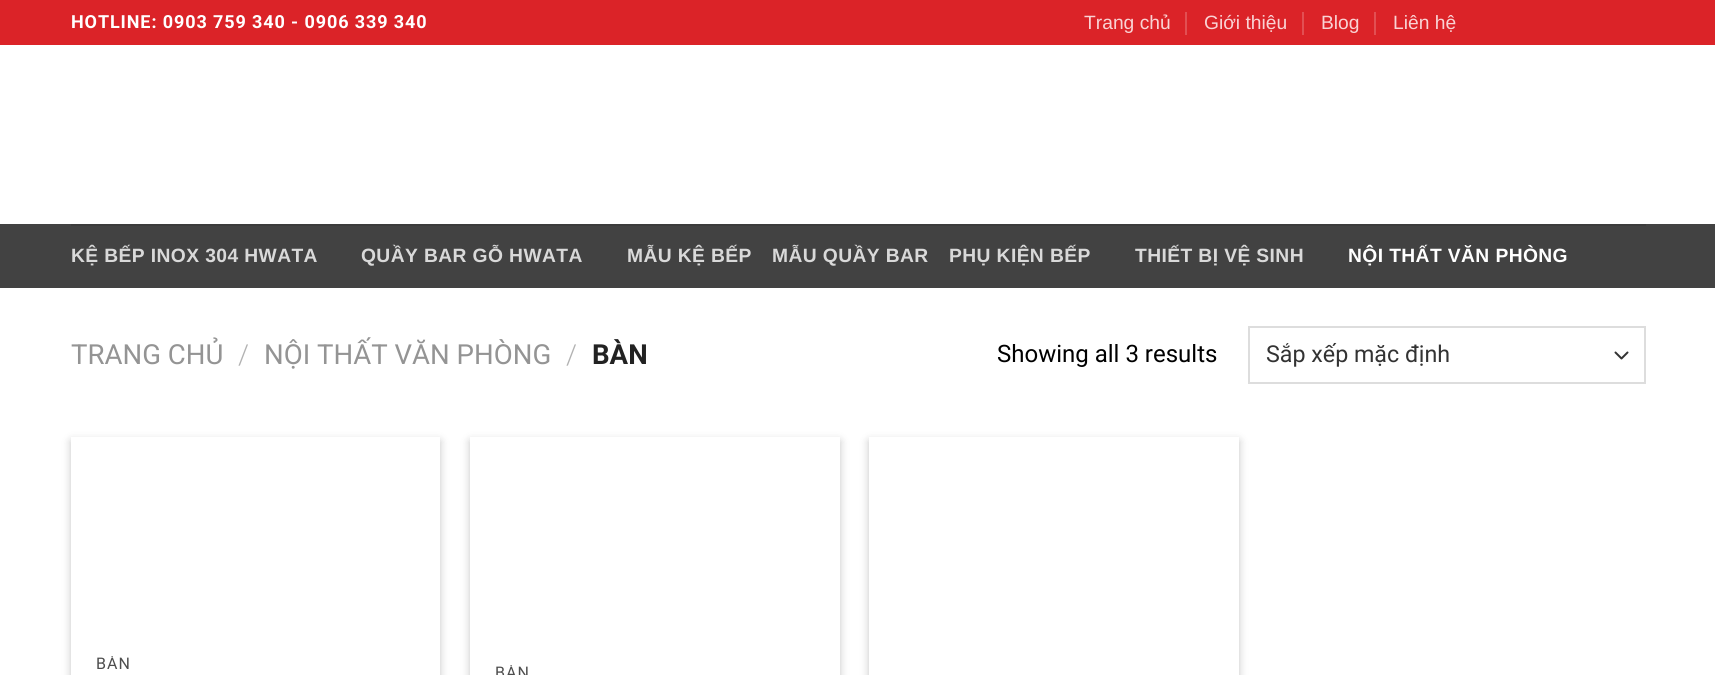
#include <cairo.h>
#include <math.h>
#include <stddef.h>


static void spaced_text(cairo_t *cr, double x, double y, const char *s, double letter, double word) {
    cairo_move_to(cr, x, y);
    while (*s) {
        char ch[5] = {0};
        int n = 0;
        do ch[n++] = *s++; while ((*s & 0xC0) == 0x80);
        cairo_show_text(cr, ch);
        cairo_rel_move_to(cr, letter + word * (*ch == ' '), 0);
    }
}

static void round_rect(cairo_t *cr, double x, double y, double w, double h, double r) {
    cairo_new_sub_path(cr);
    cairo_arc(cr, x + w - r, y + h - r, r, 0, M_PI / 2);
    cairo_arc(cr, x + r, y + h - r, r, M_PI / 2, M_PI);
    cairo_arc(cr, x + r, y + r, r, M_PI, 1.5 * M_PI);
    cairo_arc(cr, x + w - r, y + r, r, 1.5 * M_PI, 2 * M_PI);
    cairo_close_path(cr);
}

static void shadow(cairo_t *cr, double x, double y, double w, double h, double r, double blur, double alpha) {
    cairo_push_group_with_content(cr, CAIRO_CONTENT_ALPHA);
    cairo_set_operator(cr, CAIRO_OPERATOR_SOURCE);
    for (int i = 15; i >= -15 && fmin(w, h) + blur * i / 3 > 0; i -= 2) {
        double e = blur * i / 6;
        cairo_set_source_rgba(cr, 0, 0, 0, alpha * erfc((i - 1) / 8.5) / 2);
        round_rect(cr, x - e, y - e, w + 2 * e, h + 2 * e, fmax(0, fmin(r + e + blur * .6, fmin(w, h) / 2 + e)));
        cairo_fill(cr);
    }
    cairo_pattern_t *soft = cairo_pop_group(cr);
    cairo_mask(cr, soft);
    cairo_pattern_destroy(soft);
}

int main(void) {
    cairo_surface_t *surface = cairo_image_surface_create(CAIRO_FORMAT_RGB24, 1715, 675);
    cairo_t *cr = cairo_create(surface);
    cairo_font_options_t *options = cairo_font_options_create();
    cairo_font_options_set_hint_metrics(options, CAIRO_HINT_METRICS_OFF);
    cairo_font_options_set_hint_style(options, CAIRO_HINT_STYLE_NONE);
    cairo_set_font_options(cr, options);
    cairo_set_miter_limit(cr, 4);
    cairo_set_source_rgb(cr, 1, 1, 1);
    cairo_paint(cr);
    cairo_set_source_rgb(cr, 0.859, 0.137, 0.157);
    cairo_rectangle(cr, 0, 0, 1715, 45);
    cairo_fill(cr);
    cairo_select_font_face(cr, "Roboto", CAIRO_FONT_SLANT_NORMAL, CAIRO_FONT_WEIGHT_BOLD);
    cairo_set_font_size(cr, 18);
    cairo_set_source_rgb(cr, 1, 1, 1);
    spaced_text(cr, 71, 28, "HOTLINE: 0903 759 340 - 0906 339 340", 0.9, 0);
    cairo_select_font_face(cr, "Liberation Sans", CAIRO_FONT_SLANT_NORMAL, CAIRO_FONT_WEIGHT_NORMAL);
    cairo_set_font_size(cr, 19.25);
    cairo_set_source_rgb(cr, 0.973, 0.827, 0.831);
    cairo_move_to(cr, 1084, 29);
    cairo_show_text(cr, "Trang chủ");
    cairo_set_source_rgb(cr, 0.886, 0.31, 0.325);
    cairo_rectangle(cr, 1185, 12, 2, 23);
    cairo_fill(cr);
    cairo_set_source_rgb(cr, 0.973, 0.827, 0.831);
    cairo_move_to(cr, 1204, 29);
    cairo_show_text(cr, "Giới thiệu");
    cairo_set_source_rgb(cr, 0.886, 0.31, 0.325);
    cairo_rectangle(cr, 1302, 12, 2, 23);
    cairo_fill(cr);
    cairo_set_source_rgb(cr, 0.973, 0.827, 0.831);
    cairo_move_to(cr, 1321, 29);
    cairo_show_text(cr, "Blog");
    cairo_set_source_rgb(cr, 0.886, 0.31, 0.325);
    cairo_rectangle(cr, 1374, 12, 2, 23);
    cairo_fill(cr);
    cairo_set_source_rgb(cr, 0.973, 0.827, 0.831);
    cairo_move_to(cr, 1393, 29);
    cairo_show_text(cr, "Liên hệ");
    cairo_set_source_rgb(cr, 0.259, 0.259, 0.259);
    cairo_rectangle(cr, 0, 224, 1715, 64);
    cairo_fill(cr);
    cairo_set_source_rgb(cr, 0.231, 0.231, 0.231);
    cairo_rectangle(cr, 71, 224, 1575, 2);
    cairo_fill(cr);
    cairo_select_font_face(cr, "Liberation Sans", CAIRO_FONT_SLANT_NORMAL, CAIRO_FONT_WEIGHT_BOLD);
    cairo_set_source_rgb(cr, 0.851, 0.851, 0.851);
    spaced_text(cr, 71, 262, "KỆ BẾP INOX 304 HWATA", 0.4, 0);
    spaced_text(cr, 361, 262, "QUẦY BAR GỖ HWATA", 0.4, 0);
    spaced_text(cr, 627, 262, "MẪU KỆ BẾP", 0.4, 0);
    spaced_text(cr, 772, 262, "MẪU QUẦY BAR", 0.4, 0);
    spaced_text(cr, 949, 262, "PHỤ KIỆN BẾP", 0.4, 0);
    spaced_text(cr, 1135, 262, "THIẾT BỊ VỆ SINH", 0.4, 0);
    cairo_set_source_rgb(cr, 1, 1, 1);
    spaced_text(cr, 1348, 262, "NỘI THẤT VĂN PHÒNG", 0.4, 0);
    cairo_select_font_face(cr, "Roboto", CAIRO_FONT_SLANT_NORMAL, CAIRO_FONT_WEIGHT_NORMAL);
    cairo_set_font_size(cr, 27.6);
    cairo_set_source_rgb(cr, 0.58, 0.58, 0.58);
    cairo_move_to(cr, 71, 364);
    cairo_show_text(cr, "TRANG CHỦ");
    cairo_select_font_face(cr, "Roboto Light", CAIRO_FONT_SLANT_NORMAL, CAIRO_FONT_WEIGHT_NORMAL);
    cairo_set_source_rgb(cr, 0.698, 0.698, 0.698);
    cairo_move_to(cr, 238, 364);
    cairo_show_text(cr, "/");
    cairo_select_font_face(cr, "Roboto", CAIRO_FONT_SLANT_NORMAL, CAIRO_FONT_WEIGHT_NORMAL);
    cairo_set_source_rgb(cr, 0.58, 0.58, 0.58);
    cairo_move_to(cr, 264, 364);
    cairo_show_text(cr, "NỘI THẤT VĂN PHÒNG");
    cairo_select_font_face(cr, "Roboto Light", CAIRO_FONT_SLANT_NORMAL, CAIRO_FONT_WEIGHT_NORMAL);
    cairo_set_source_rgb(cr, 0.698, 0.698, 0.698);
    cairo_move_to(cr, 566, 364);
    cairo_show_text(cr, "/");
    cairo_select_font_face(cr, "Roboto", CAIRO_FONT_SLANT_NORMAL, CAIRO_FONT_WEIGHT_BOLD);
    cairo_set_source_rgb(cr, 0.133, 0.133, 0.133);
    cairo_move_to(cr, 592, 364);
    cairo_show_text(cr, "BÀN");
    cairo_select_font_face(cr, "Roboto", CAIRO_FONT_SLANT_NORMAL, CAIRO_FONT_WEIGHT_NORMAL);
    cairo_set_font_size(cr, 24);
    cairo_set_source_rgb(cr, 0, 0, 0);
    cairo_move_to(cr, 997, 362);
    cairo_show_text(cr, "Showing all 3 results");
    cairo_new_path(cr);
    cairo_move_to(cr, 1615.5, 352.5);
    cairo_line_to(cr, 1621.5, 358.5);
    cairo_line_to(cr, 1627.5, 352.5);
    cairo_set_source_rgb(cr, 0.2, 0.2, 0.2);
    cairo_set_line_cap(cr, CAIRO_LINE_CAP_ROUND);
    cairo_set_line_join(cr, CAIRO_LINE_JOIN_ROUND);
    cairo_stroke(cr);
    cairo_rectangle(cr, 1249, 327, 396, 56);
    cairo_set_source_rgb(cr, 0.867, 0.867, 0.867);
    cairo_set_line_cap(cr, CAIRO_LINE_CAP_BUTT);
    cairo_set_line_join(cr, CAIRO_LINE_JOIN_MITER);
    cairo_stroke(cr);
    cairo_set_font_size(cr, 23.25);
    cairo_set_source_rgb(cr, 0.2, 0.2, 0.2);
    cairo_move_to(cr, 1266, 362);
    cairo_show_text(cr, "Sắp xếp mặc định");
    cairo_set_source_rgb(cr, 0, 0, 0);
    shadow(cr, 71, 441, 369, 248, 0, 4.5, 0.23);
    cairo_set_source_rgb(cr, 1, 1, 1);
    cairo_rectangle(cr, 71, 437, 369, 238);
    cairo_fill(cr);
    cairo_save(cr);
    cairo_rectangle(cr, 96, 656, 318, 19);
    cairo_clip(cr);
    cairo_set_font_size(cr, 16);
    cairo_set_source_rgb(cr, 0.302, 0.302, 0.302);
    spaced_text(cr, 96, 669, "BÀN", 1, 0);
    cairo_restore(cr);
    cairo_save(cr);
    cairo_set_fill_rule(cr, CAIRO_FILL_RULE_EVEN_ODD);
    cairo_new_path(cr);
    cairo_move_to(cr, 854, 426);
    cairo_line_to(cr, 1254, 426);
    cairo_line_to(cr, 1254, 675);
    cairo_line_to(cr, 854, 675);
    cairo_close_path(cr);
    cairo_move_to(cr, 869, 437);
    cairo_line_to(cr, 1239, 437);
    cairo_line_to(cr, 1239, 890);
    cairo_line_to(cr, 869, 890);
    cairo_close_path(cr);
    cairo_clip(cr);
    cairo_set_source_rgb(cr, 0, 0, 0);
    shadow(cr, 869, 441, 370, 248, 0, 4.5, 0.23);
    cairo_restore(cr);
    cairo_save(cr);
    cairo_set_fill_rule(cr, CAIRO_FILL_RULE_EVEN_ODD);
    cairo_new_path(cr);
    cairo_move_to(cr, 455, 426);
    cairo_line_to(cr, 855, 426);
    cairo_line_to(cr, 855, 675);
    cairo_line_to(cr, 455, 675);
    cairo_close_path(cr);
    cairo_move_to(cr, 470, 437);
    cairo_line_to(cr, 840, 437);
    cairo_line_to(cr, 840, 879);
    cairo_line_to(cr, 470, 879);
    cairo_close_path(cr);
    cairo_clip(cr);
    cairo_set_source_rgb(cr, 0, 0, 0);
    shadow(cr, 470, 441, 370, 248, 0, 4.5, 0.23);
    cairo_restore(cr);
    cairo_save(cr);
    cairo_rectangle(cr, 495, 665, 318, 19);
    cairo_clip(cr);
    cairo_set_font_size(cr, 16);
    cairo_set_source_rgb(cr, 0.302, 0.302, 0.302);
    spaced_text(cr, 495, 678, "BÀN", 1, 0);
    cairo_restore(cr);
    cairo_surface_write_to_png(surface, "page.png");
    cairo_font_options_destroy(options);
    cairo_destroy(cr);
    cairo_surface_destroy(surface);
    return 0;
}
